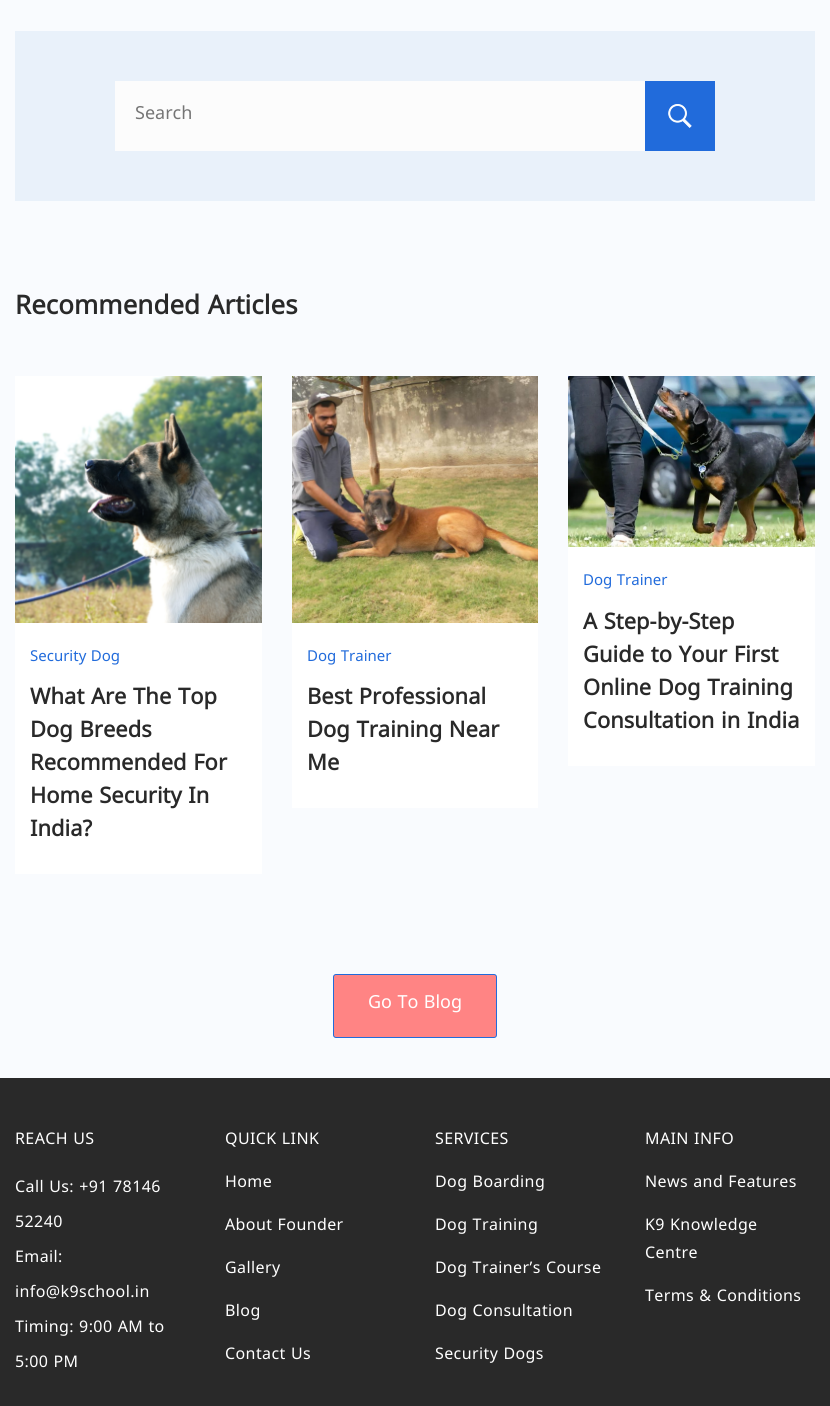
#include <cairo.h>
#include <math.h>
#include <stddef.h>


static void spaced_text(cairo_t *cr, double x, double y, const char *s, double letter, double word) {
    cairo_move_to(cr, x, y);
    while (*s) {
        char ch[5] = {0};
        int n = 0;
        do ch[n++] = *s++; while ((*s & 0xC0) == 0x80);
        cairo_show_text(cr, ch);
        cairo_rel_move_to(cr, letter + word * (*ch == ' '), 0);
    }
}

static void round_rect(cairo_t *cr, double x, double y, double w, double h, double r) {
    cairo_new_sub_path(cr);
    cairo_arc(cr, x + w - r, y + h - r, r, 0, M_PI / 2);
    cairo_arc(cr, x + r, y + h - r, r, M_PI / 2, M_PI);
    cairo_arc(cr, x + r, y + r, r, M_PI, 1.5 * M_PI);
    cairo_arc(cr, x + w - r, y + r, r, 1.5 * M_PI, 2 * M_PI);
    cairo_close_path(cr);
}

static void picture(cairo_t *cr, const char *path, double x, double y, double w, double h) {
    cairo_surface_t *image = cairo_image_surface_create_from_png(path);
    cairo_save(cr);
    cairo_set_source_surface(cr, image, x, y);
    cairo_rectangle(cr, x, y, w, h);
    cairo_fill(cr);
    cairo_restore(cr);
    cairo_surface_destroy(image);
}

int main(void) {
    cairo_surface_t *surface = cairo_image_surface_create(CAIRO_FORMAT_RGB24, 830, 1406);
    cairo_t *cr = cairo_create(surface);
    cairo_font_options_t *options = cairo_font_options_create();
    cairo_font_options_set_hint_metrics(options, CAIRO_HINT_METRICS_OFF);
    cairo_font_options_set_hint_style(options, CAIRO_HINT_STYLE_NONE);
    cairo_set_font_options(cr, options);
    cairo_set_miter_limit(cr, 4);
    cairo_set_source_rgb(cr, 0.976, 0.984, 0.996);
    cairo_paint(cr);
    cairo_set_source_rgb(cr, 0.914, 0.945, 0.98);
    cairo_rectangle(cr, 15, 31, 800, 170);
    cairo_fill(cr);
    cairo_set_source_rgb(cr, 0.988, 0.988, 0.988);
    cairo_rectangle(cr, 115, 81, 530, 70);
    cairo_fill(cr);
    cairo_select_font_face(cr, "Noto Sans Nandinagari", CAIRO_FONT_SLANT_NORMAL, CAIRO_FONT_WEIGHT_NORMAL);
    cairo_set_font_size(cr, 18);
    cairo_set_source_rgb(cr, 0.459, 0.459, 0.459);
    cairo_move_to(cr, 135, 119);
    cairo_show_text(cr, "Search");
    cairo_set_source_rgb(cr, 0.129, 0.42, 0.859);
    cairo_rectangle(cr, 645, 81, 70, 70);
    cairo_fill(cr);
    picture(cr, "img1.png", 668, 104, 24, 24);
    cairo_select_font_face(cr, "Noto Sans Nandinagari", CAIRO_FONT_SLANT_NORMAL, CAIRO_FONT_WEIGHT_BOLD);
    cairo_set_font_size(cr, 26);
    cairo_set_source_rgb(cr, 0.161, 0.161, 0.161);
    cairo_move_to(cr, 15, 314);
    cairo_show_text(cr, "Recommended Articles");
    cairo_set_source_rgb(cr, 1, 1, 1);
    cairo_rectangle(cr, 15, 623, 247, 251);
    cairo_fill(cr);
    picture(cr, "img2.png", 15, 376, 247, 247);
    cairo_select_font_face(cr, "Noto Sans Nandinagari", CAIRO_FONT_SLANT_NORMAL, CAIRO_FONT_WEIGHT_NORMAL);
    cairo_set_font_size(cr, 15);
    cairo_set_source_rgb(cr, 0.129, 0.42, 0.859);
    cairo_move_to(cr, 30, 661);
    cairo_show_text(cr, "Security Dog");
    cairo_select_font_face(cr, "Noto Sans Nandinagari", CAIRO_FONT_SLANT_NORMAL, CAIRO_FONT_WEIGHT_BOLD);
    cairo_set_font_size(cr, 22);
    cairo_set_source_rgb(cr, 0.161, 0.161, 0.161);
    cairo_move_to(cr, 30, 704);
    cairo_show_text(cr, "What Are The Top");
    cairo_move_to(cr, 30, 737);
    cairo_show_text(cr, "Dog Breeds");
    cairo_move_to(cr, 30, 770);
    cairo_show_text(cr, "Recommended For");
    cairo_move_to(cr, 30, 803);
    cairo_show_text(cr, "Home Security In");
    cairo_move_to(cr, 30, 836);
    cairo_show_text(cr, "India?");
    cairo_set_source_rgb(cr, 1, 1, 1);
    cairo_rectangle(cr, 292, 623, 246, 185);
    cairo_fill(cr);
    picture(cr, "img3.png", 292, 376, 246, 247);
    cairo_select_font_face(cr, "Noto Sans Nandinagari", CAIRO_FONT_SLANT_NORMAL, CAIRO_FONT_WEIGHT_NORMAL);
    cairo_set_font_size(cr, 15);
    cairo_set_source_rgb(cr, 0.129, 0.42, 0.859);
    cairo_move_to(cr, 307, 661);
    cairo_show_text(cr, "Dog Trainer");
    cairo_select_font_face(cr, "Noto Sans Nandinagari", CAIRO_FONT_SLANT_NORMAL, CAIRO_FONT_WEIGHT_BOLD);
    cairo_set_font_size(cr, 22);
    cairo_set_source_rgb(cr, 0.161, 0.161, 0.161);
    cairo_move_to(cr, 307, 704);
    cairo_show_text(cr, "Best Professional");
    cairo_move_to(cr, 307, 737);
    cairo_show_text(cr, "Dog Training Near");
    cairo_move_to(cr, 307, 770);
    cairo_show_text(cr, "Me");
    cairo_set_source_rgb(cr, 1, 1, 1);
    cairo_rectangle(cr, 568, 547, 247, 219);
    cairo_fill(cr);
    picture(cr, "img4.png", 568, 376, 247, 171);
    cairo_select_font_face(cr, "Noto Sans Nandinagari", CAIRO_FONT_SLANT_NORMAL, CAIRO_FONT_WEIGHT_NORMAL);
    cairo_set_font_size(cr, 15);
    cairo_set_source_rgb(cr, 0.129, 0.42, 0.859);
    cairo_move_to(cr, 583, 585);
    cairo_show_text(cr, "Dog Trainer");
    cairo_select_font_face(cr, "Noto Sans Nandinagari", CAIRO_FONT_SLANT_NORMAL, CAIRO_FONT_WEIGHT_BOLD);
    cairo_set_font_size(cr, 22);
    cairo_set_source_rgb(cr, 0.161, 0.161, 0.161);
    cairo_move_to(cr, 583, 629);
    cairo_show_text(cr, "A Step-by-Step");
    cairo_move_to(cr, 583, 662);
    cairo_show_text(cr, "Guide to Your First");
    cairo_move_to(cr, 583, 695);
    cairo_show_text(cr, "Online Dog Training");
    cairo_move_to(cr, 583, 728);
    cairo_show_text(cr, "Consultation in India");
    cairo_set_source_rgb(cr, 1, 0.518, 0.518);
    round_rect(cr, 333.5, 974.5, 163, 63, 2.5);
    cairo_fill_preserve(cr);
    cairo_set_source_rgb(cr, 0.129, 0.42, 0.859);
    cairo_set_line_width(cr, 1);
    cairo_stroke(cr);
    cairo_select_font_face(cr, "Noto Sans Nandinagari", CAIRO_FONT_SLANT_NORMAL, CAIRO_FONT_WEIGHT_NORMAL);
    cairo_set_font_size(cr, 18);
    cairo_set_source_rgb(cr, 1, 1, 1);
    cairo_move_to(cr, 368, 1008);
    cairo_show_text(cr, "Go To Blog");
    cairo_set_source_rgb(cr, 0.161, 0.161, 0.161);
    cairo_rectangle(cr, 0, 1078, 830, 328);
    cairo_fill(cr);
    cairo_set_font_size(cr, 16);
    cairo_set_source_rgb(cr, 1, 1, 1);
    spaced_text(cr, 15, 1144, "REACH US", 0.4, 0);
    spaced_text(cr, 15, 1192, "Call Us: +91 78146", 0.4, 0);
    spaced_text(cr, 15, 1227, "52240", 0.4, 0);
    spaced_text(cr, 15, 1262, "Email:", 0.4, 0);
    spaced_text(cr, 15, 1297, "info@k9school.in", 0.4, 0);
    spaced_text(cr, 15, 1332, "Timing: 9:00 AM to", 0.4, 0);
    spaced_text(cr, 15, 1367, "5:00 PM", 0.4, 0);
    spaced_text(cr, 225, 1144, "QUICK LINK", 0.4, 0);
    spaced_text(cr, 225, 1187, "Home", 0.4, 0);
    spaced_text(cr, 225, 1230, "About Founder", 0.4, 0);
    spaced_text(cr, 225, 1273, "Gallery", 0.4, 0);
    spaced_text(cr, 225, 1316, "Blog", 0.4, 0);
    spaced_text(cr, 225, 1359, "Contact Us", 0.4, 0);
    spaced_text(cr, 435, 1144, "SERVICES", 0.4, 0);
    spaced_text(cr, 435, 1187, "Dog Boarding", 0.4, 0);
    spaced_text(cr, 435, 1230, "Dog Training", 0.4, 0);
    spaced_text(cr, 435, 1273, "Dog Trainer’s Course", 0.4, 0);
    spaced_text(cr, 435, 1316, "Dog Consultation", 0.4, 0);
    spaced_text(cr, 435, 1359, "Security Dogs", 0.4, 0);
    spaced_text(cr, 645, 1144, "MAIN INFO", 0.4, 0);
    spaced_text(cr, 645, 1187, "News and Features", 0.4, 0);
    spaced_text(cr, 645, 1230, "K9 Knowledge", 0.4, 0);
    spaced_text(cr, 645, 1258, "Centre", 0.4, 0);
    spaced_text(cr, 645, 1301, "Terms & Conditions", 0.4, 0);
    cairo_surface_write_to_png(surface, "page.png");
    cairo_font_options_destroy(options);
    cairo_destroy(cr);
    cairo_surface_destroy(surface);
    return 0;
}
